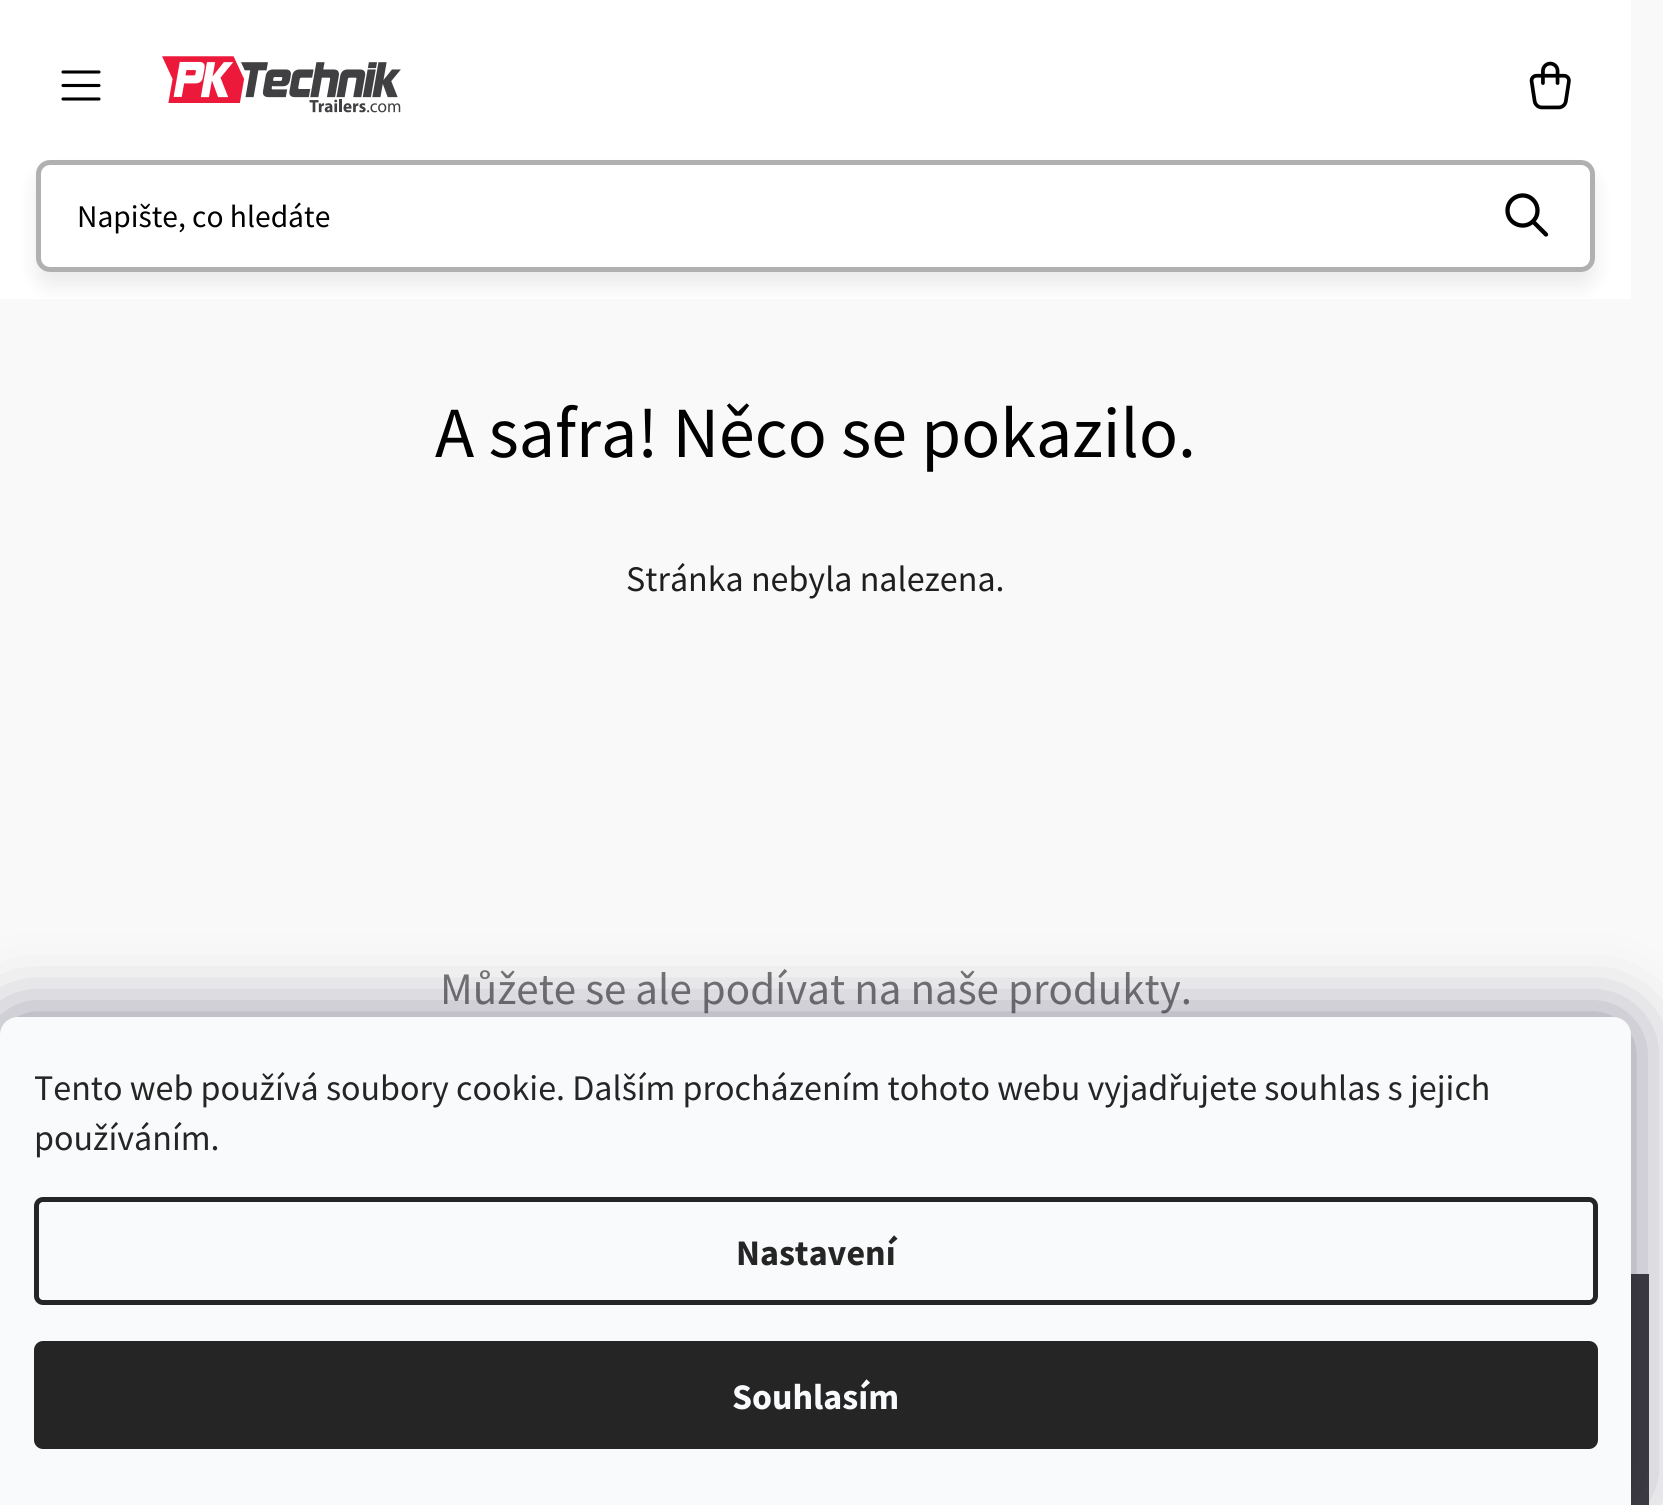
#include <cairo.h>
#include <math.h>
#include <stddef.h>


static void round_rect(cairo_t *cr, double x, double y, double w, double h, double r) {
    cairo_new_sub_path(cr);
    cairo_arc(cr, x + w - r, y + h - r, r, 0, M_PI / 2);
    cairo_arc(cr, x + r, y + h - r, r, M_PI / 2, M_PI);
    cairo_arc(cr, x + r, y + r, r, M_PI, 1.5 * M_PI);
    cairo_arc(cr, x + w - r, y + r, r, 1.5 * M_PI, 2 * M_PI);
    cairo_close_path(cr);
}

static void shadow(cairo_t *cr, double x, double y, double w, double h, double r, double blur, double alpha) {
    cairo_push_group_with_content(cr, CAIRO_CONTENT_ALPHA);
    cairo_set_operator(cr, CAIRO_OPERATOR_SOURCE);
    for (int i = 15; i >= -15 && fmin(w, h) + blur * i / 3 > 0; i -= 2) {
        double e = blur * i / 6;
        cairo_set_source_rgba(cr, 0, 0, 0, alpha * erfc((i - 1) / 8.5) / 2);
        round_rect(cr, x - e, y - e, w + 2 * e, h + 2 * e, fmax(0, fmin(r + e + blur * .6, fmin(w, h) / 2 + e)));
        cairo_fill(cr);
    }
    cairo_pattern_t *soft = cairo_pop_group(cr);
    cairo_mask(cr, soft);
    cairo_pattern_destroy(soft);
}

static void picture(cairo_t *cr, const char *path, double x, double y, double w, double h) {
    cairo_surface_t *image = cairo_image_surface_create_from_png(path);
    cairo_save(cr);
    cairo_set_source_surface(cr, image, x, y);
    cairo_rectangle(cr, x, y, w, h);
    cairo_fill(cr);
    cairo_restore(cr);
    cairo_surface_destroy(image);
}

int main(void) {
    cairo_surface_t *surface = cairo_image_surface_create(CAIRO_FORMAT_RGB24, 1663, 1505);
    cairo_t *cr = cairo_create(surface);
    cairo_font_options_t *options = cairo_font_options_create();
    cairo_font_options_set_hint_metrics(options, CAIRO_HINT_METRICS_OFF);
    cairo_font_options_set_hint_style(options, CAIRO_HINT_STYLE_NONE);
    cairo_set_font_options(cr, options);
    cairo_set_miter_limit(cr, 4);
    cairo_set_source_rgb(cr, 0.976, 0.976, 0.976);
    cairo_paint(cr);
    cairo_set_source_rgb(cr, 1, 1, 1);
    cairo_rectangle(cr, 0, 0, 1631, 299);
    cairo_fill(cr);
    cairo_new_path(cr);
    cairo_move_to(cr, 63, 72);
    cairo_line_to(cr, 99, 72);
    cairo_move_to(cr, 63, 85.5);
    cairo_line_to(cr, 99, 85.5);
    cairo_move_to(cr, 63, 99);
    cairo_line_to(cr, 99, 99);
    cairo_set_source_rgb(cr, 0, 0, 0);
    cairo_set_line_width(cr, 3.1);
    cairo_set_line_cap(cr, CAIRO_LINE_CAP_ROUND);
    cairo_set_line_join(cr, CAIRO_LINE_JOIN_ROUND);
    cairo_stroke(cr);
    picture(cr, "img1.png", 162, 56, 239, 57);
    picture(cr, "img2.png", 1529, 61, 42, 49);
    cairo_save(cr);
    cairo_set_fill_rule(cr, CAIRO_FILL_RULE_EVEN_ODD);
    cairo_new_path(cr);
    cairo_move_to(cr, 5, 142);
    cairo_line_to(cr, 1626, 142);
    cairo_line_to(cr, 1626, 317);
    cairo_line_to(cr, 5, 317);
    cairo_close_path(cr);
    cairo_move_to(cr, 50, 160);
    cairo_line_to(cr, 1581, 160);
    cairo_curve_to(cr, 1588.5, 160, 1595, 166.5, 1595, 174);
    cairo_line_to(cr, 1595, 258);
    cairo_curve_to(cr, 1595, 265.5, 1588.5, 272, 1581, 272);
    cairo_line_to(cr, 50, 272);
    cairo_curve_to(cr, 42.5, 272, 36, 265.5, 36, 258);
    cairo_line_to(cr, 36, 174);
    cairo_curve_to(cr, 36, 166.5, 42.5, 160, 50, 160);
    cairo_close_path(cr);
    cairo_clip(cr);
    cairo_set_source_rgb(cr, 0, 0, 0);
    shadow(cr, 36, 173, 1559, 113, 14, 10, 0.08);
    cairo_restore(cr);
    round_rect(cr, 38.5, 162.5, 1554, 107, 11.5);
    cairo_set_source_rgb(cr, 0.69, 0.69, 0.69);
    cairo_set_line_width(cr, 5);
    cairo_set_line_cap(cr, CAIRO_LINE_CAP_BUTT);
    cairo_set_line_join(cr, CAIRO_LINE_JOIN_MITER);
    cairo_stroke(cr);
    cairo_select_font_face(cr, "Source Sans Pro", CAIRO_FONT_SLANT_NORMAL, CAIRO_FONT_WEIGHT_NORMAL);
    cairo_set_font_size(cr, 31.5);
    cairo_set_source_rgb(cr, 0, 0, 0);
    cairo_move_to(cr, 77, 227);
    cairo_show_text(cr, "Napište, co hledáte");
    cairo_new_path(cr);
    cairo_move_to(cr, 1546, 234.5);
    cairo_line_to(cr, 1533, 221.5);
    cairo_move_to(cr, 1507.5, 210.5);
    cairo_curve_to(cr, 1507.5, 225, 1526, 231, 1534.5, 219.5);
    cairo_curve_to(cr, 1536.5, 217, 1537.5, 214, 1537.5, 210.5);
    cairo_curve_to(cr, 1537.5, 207.5, 1536.5, 204, 1534.5, 201.5);
    cairo_curve_to(cr, 1526, 190, 1507.5, 196, 1507.5, 210.5);
    cairo_close_path(cr);
    cairo_set_line_width(cr, 4.3);
    cairo_set_line_cap(cr, CAIRO_LINE_CAP_ROUND);
    cairo_set_line_join(cr, CAIRO_LINE_JOIN_ROUND);
    cairo_stroke(cr);
    cairo_set_font_size(cr, 72);
    cairo_move_to(cr, 435, 457);
    cairo_show_text(cr, "A safra! Něco se pokazilo.");
    cairo_set_font_size(cr, 36);
    cairo_set_source_rgb(cr, 0.122, 0.122, 0.122);
    cairo_move_to(cr, 626, 591);
    cairo_show_text(cr, "Stránka nebyla nalezena.");
    cairo_set_font_size(cr, 45);
    cairo_set_source_rgb(cr, 0.463, 0.463, 0.463);
    cairo_move_to(cr, 440, 1004);
    cairo_show_text(cr, "Můžete se ale podívat na naše produkty.");
    cairo_set_source_rgb(cr, 0.251, 0.247, 0.255);
    cairo_rectangle(cr, 1631, 1274, 18, 231);
    cairo_fill(cr);
    cairo_set_source_rgb(cr, 0.106, 0.098, 0.224);
    shadow(cr, 0, 1017, 1631, 488, 18, 34, 0.5);
    cairo_set_source_rgb(cr, 0.973, 0.98, 0.984);
    cairo_new_path(cr);
    cairo_move_to(cr, 18, 1017);
    cairo_line_to(cr, 1613, 1017);
    cairo_curve_to(cr, 1623, 1017, 1631, 1025, 1631, 1035);
    cairo_line_to(cr, 1631, 1505);
    cairo_line_to(cr, 0, 1505);
    cairo_line_to(cr, 0, 1035);
    cairo_curve_to(cr, 0, 1025, 8, 1017, 18, 1017);
    cairo_close_path(cr);
    cairo_fill(cr);
    cairo_set_font_size(cr, 36);
    cairo_set_source_rgb(cr, 0.145, 0.145, 0.145);
    cairo_move_to(cr, 34, 1100);
    cairo_show_text(cr, "Tento web používá soubory cookie. Dalším procházením tohoto webu vyjadřujete souhlas s jejich");
    cairo_move_to(cr, 34, 1150);
    cairo_show_text(cr, "používáním.");
    round_rect(cr, 36.5, 1199.5, 1559, 103, 6.5);
    cairo_set_line_width(cr, 5);
    cairo_set_line_cap(cr, CAIRO_LINE_CAP_BUTT);
    cairo_set_line_join(cr, CAIRO_LINE_JOIN_MITER);
    cairo_stroke(cr);
    cairo_select_font_face(cr, "Source Sans Pro", CAIRO_FONT_SLANT_NORMAL, CAIRO_FONT_WEIGHT_BOLD);
    cairo_move_to(cr, 736, 1265);
    cairo_show_text(cr, "Nastavení");
    round_rect(cr, 34, 1341, 1564, 108, 9);
    cairo_fill(cr);
    cairo_set_source_rgb(cr, 0.973, 0.98, 0.984);
    cairo_move_to(cr, 732, 1409);
    cairo_show_text(cr, "Souhlasím");
    cairo_surface_write_to_png(surface, "page.png");
    cairo_font_options_destroy(options);
    cairo_destroy(cr);
    cairo_surface_destroy(surface);
    return 0;
}
